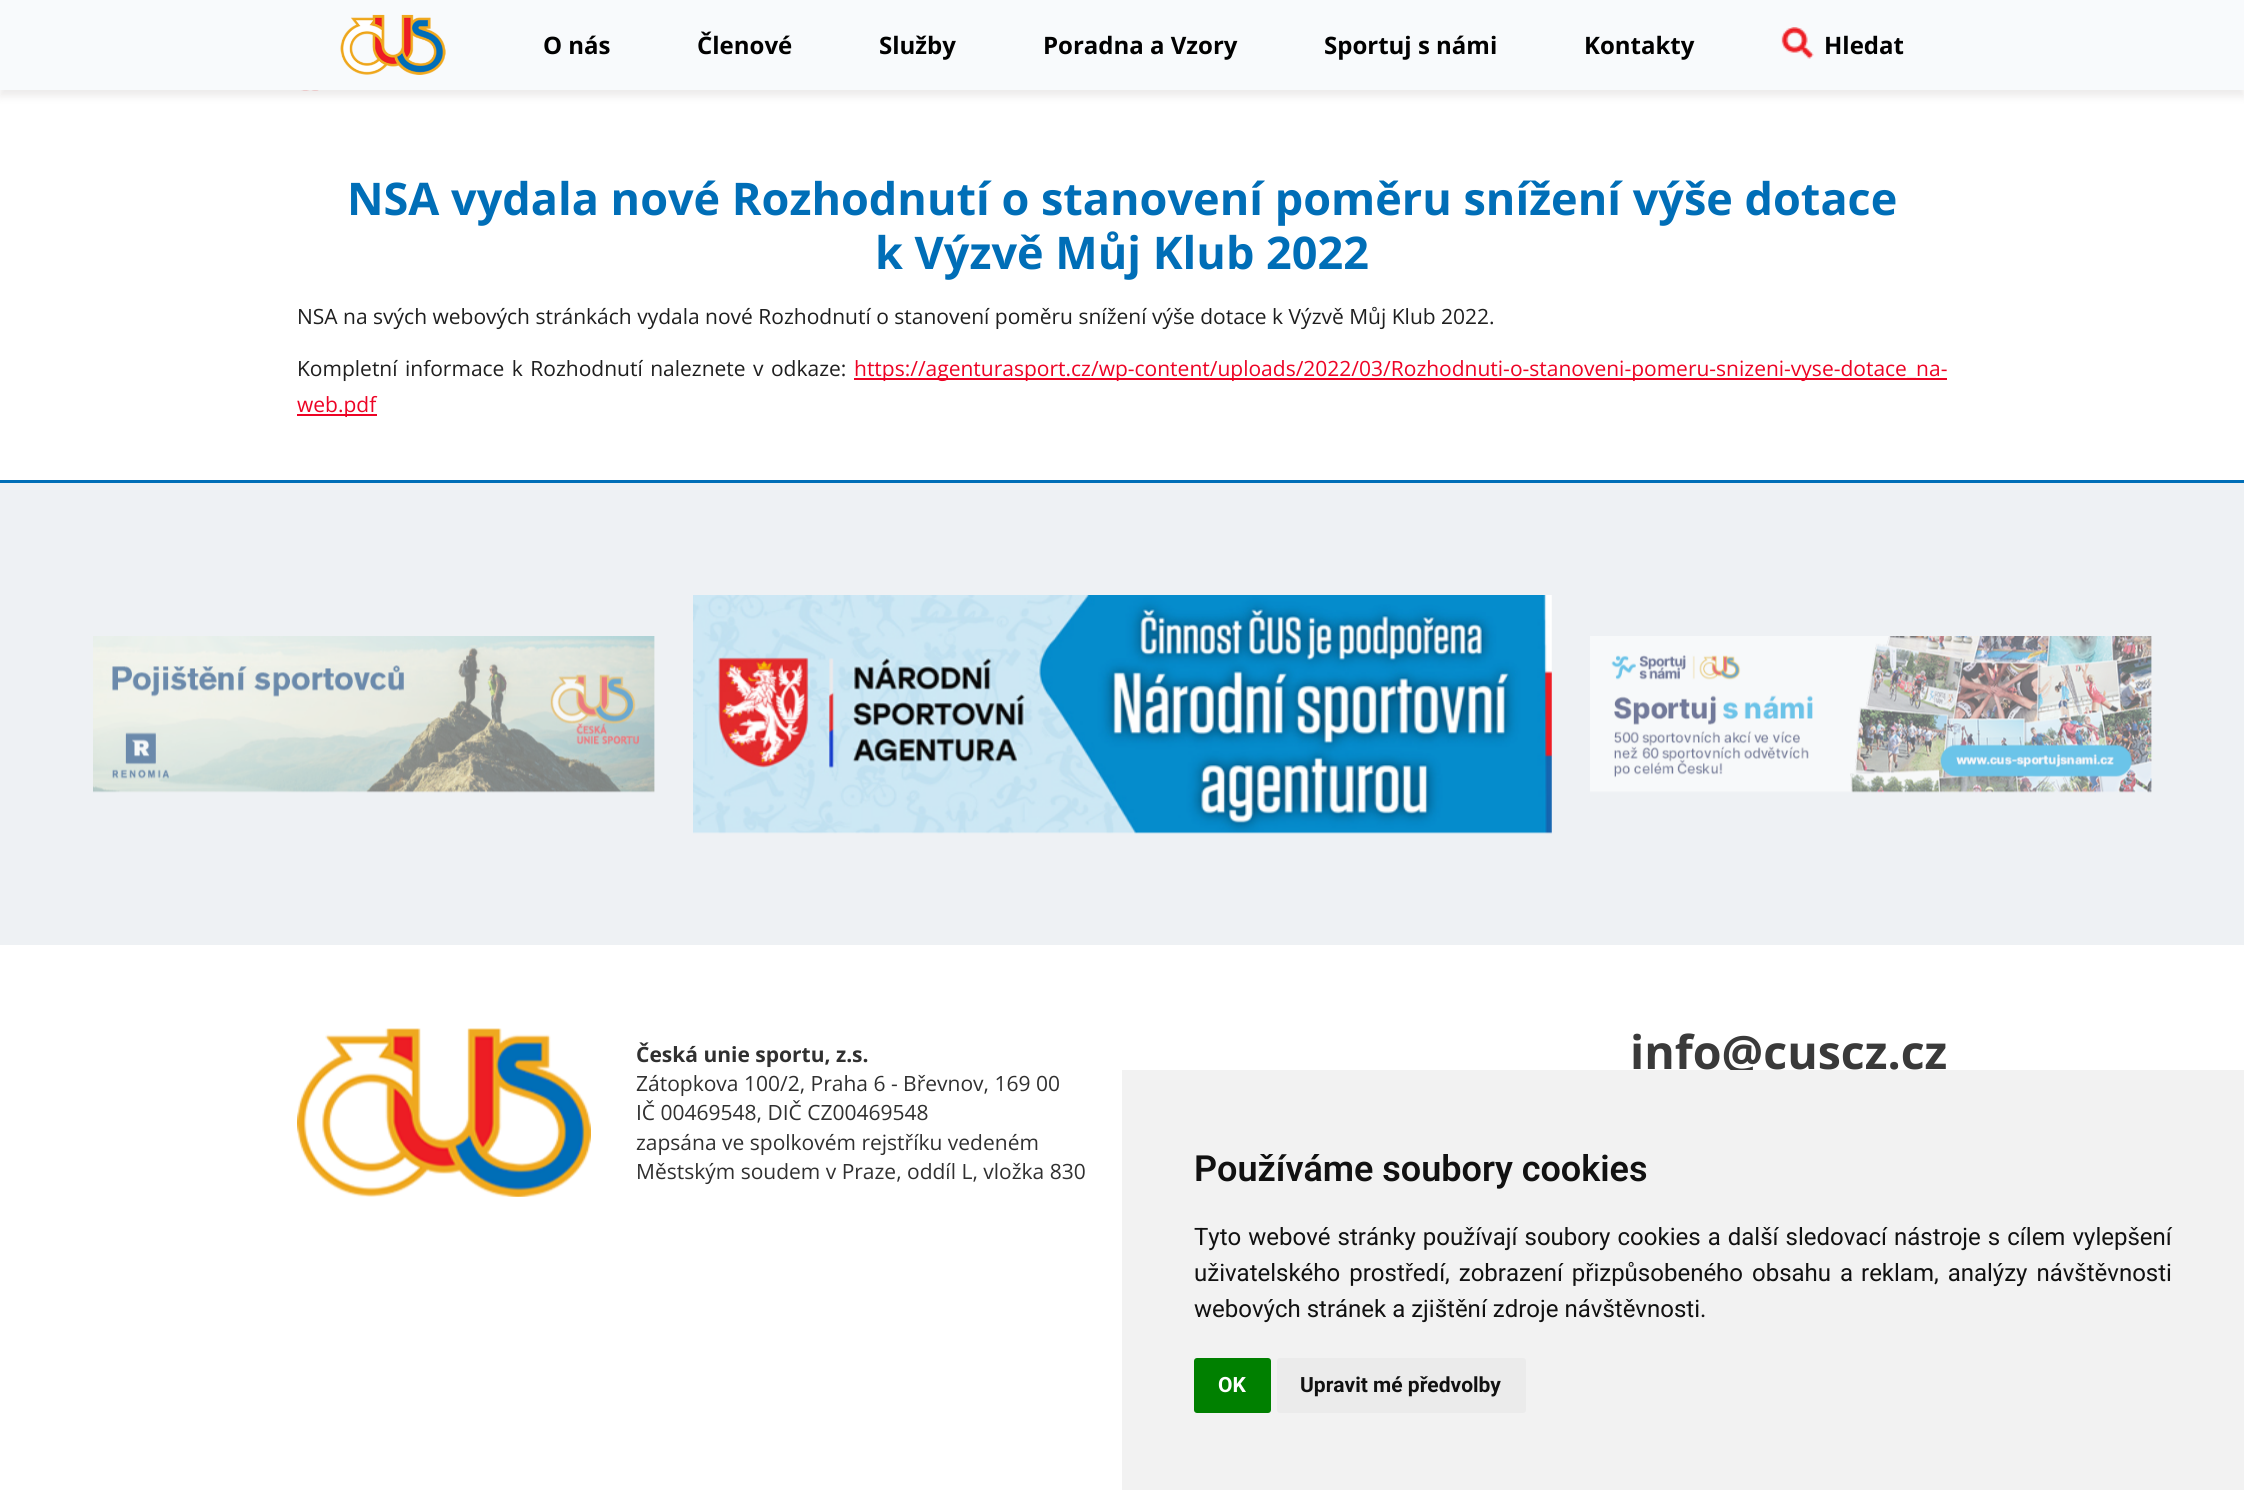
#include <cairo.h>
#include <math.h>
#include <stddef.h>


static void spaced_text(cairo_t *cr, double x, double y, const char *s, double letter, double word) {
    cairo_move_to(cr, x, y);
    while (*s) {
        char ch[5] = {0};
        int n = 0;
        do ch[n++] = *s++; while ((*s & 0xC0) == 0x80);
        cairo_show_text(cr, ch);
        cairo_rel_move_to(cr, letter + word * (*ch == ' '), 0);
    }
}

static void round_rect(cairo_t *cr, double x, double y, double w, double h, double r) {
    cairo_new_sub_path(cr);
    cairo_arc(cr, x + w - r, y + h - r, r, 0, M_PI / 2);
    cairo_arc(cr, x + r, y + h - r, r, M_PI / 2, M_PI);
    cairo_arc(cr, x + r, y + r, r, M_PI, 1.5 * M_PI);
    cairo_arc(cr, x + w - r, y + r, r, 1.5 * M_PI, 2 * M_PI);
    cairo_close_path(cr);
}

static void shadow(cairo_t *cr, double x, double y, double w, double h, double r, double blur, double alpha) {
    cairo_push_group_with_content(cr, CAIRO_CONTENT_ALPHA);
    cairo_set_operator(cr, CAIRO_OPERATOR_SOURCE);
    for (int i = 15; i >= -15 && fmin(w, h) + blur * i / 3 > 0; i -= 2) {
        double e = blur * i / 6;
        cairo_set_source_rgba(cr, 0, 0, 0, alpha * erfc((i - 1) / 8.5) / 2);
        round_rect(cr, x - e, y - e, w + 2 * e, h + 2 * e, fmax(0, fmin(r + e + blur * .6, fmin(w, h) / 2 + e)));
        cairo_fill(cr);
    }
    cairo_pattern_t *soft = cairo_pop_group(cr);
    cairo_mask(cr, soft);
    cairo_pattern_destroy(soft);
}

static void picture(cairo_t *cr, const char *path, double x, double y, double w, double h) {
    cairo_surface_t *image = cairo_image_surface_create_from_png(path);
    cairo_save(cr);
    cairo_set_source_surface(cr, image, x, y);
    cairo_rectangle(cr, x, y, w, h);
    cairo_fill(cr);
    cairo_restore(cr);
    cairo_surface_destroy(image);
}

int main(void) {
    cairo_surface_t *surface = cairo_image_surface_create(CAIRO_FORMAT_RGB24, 2244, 1490);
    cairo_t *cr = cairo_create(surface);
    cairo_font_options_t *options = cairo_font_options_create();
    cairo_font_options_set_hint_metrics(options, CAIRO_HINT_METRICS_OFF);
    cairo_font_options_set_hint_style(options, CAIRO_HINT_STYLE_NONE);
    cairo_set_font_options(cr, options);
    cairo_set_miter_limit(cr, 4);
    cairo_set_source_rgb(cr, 1, 1, 1);
    cairo_paint(cr);
    picture(cr, "img3.png", 301, 90, 18, 1);
    cairo_set_source_rgb(cr, 0.224, 0.165, 0.141);
    shadow(cr, 0, 6, 2244, 90, 0, 4.5, 0.1);
    cairo_set_source_rgb(cr, 0.969, 0.98, 0.988);
    cairo_rectangle(cr, 0, 0, 2244, 90);
    cairo_fill(cr);
    picture(cr, "img1.png", 340, 14, 106, 61);
    cairo_select_font_face(cr, "Open Sans", CAIRO_FONT_SLANT_NORMAL, CAIRO_FONT_WEIGHT_BOLD);
    cairo_set_font_size(cr, 24);
    cairo_set_source_rgb(cr, 0.004, 0.004, 0.004);
    cairo_move_to(cr, 543, 54);
    cairo_show_text(cr, "O nás");
    cairo_move_to(cr, 697, 54);
    cairo_show_text(cr, "Členové");
    cairo_move_to(cr, 879, 54);
    cairo_show_text(cr, "Služby");
    cairo_move_to(cr, 1043, 54);
    cairo_show_text(cr, "Poradna a Vzory");
    cairo_move_to(cr, 1324, 54);
    cairo_show_text(cr, "Sportuj s námi");
    cairo_move_to(cr, 1584, 54);
    cairo_show_text(cr, "Kontakty");
    picture(cr, "img2.png", 1781, 27, 33, 32);
    cairo_move_to(cr, 1824, 54);
    cairo_show_text(cr, "Hledat");
    cairo_set_font_size(cr, 45);
    cairo_set_source_rgb(cr, 0, 0.431, 0.718);
    cairo_move_to(cr, 347, 215);
    cairo_show_text(cr, "NSA vydala nové Rozhodnutí o stanovení poměru snížení výše dotace");
    cairo_move_to(cr, 875, 269);
    cairo_show_text(cr, "k Výzvě Můj Klub 2022");
    cairo_select_font_face(cr, "Open Sans", CAIRO_FONT_SLANT_NORMAL, CAIRO_FONT_WEIGHT_NORMAL);
    cairo_set_font_size(cr, 21);
    cairo_set_source_rgb(cr, 0.122, 0.122, 0.122);
    cairo_move_to(cr, 297, 324);
    cairo_show_text(cr, "NSA na svých webových stránkách vydala nové Rozhodnutí o stanovení poměru snížení výše dotace k Výzvě Můj Klub 2022.");
    spaced_text(cr, 297, 376, "Kompletní informace k Rozhodnutí naleznete v odkaze:", 0, 2);
    cairo_set_source_rgb(cr, 0.929, 0.012, 0.145);
    cairo_rectangle(cr, 854, 378, 1093, 2);
    cairo_fill(cr);
    cairo_move_to(cr, 854, 376);
    cairo_show_text(cr, "https://agenturasport.cz/wp-content/uploads/2022/03/Rozhodnuti-o-stanoveni-pomeru-snizeni-vyse-dotace_na-");
    cairo_rectangle(cr, 297, 414, 80, 2);
    cairo_fill(cr);
    cairo_move_to(cr, 297, 412);
    cairo_show_text(cr, "web.pdf");
    cairo_set_source_rgb(cr, 0.933, 0.945, 0.957);
    cairo_rectangle(cr, 0, 483, 2244, 462);
    cairo_fill(cr);
    cairo_set_source_rgb(cr, 0, 0.431, 0.718);
    cairo_rectangle(cr, 0, 480, 2244, 3);
    cairo_fill(cr);
    picture(cr, "img4.png", 93, 636, 562, 157);
    picture(cr, "img5.png", 693, 595, 859, 239);
    picture(cr, "img6.png", 1590, 636, 562, 157);
    picture(cr, "img7.png", 297, 1028, 294, 169);
    cairo_select_font_face(cr, "Open Sans", CAIRO_FONT_SLANT_NORMAL, CAIRO_FONT_WEIGHT_BOLD);
    cairo_set_source_rgb(cr, 0.188, 0.188, 0.188);
    cairo_move_to(cr, 636, 1062);
    cairo_show_text(cr, "Česká unie sportu, z.s.");
    cairo_select_font_face(cr, "Open Sans", CAIRO_FONT_SLANT_NORMAL, CAIRO_FONT_WEIGHT_NORMAL);
    cairo_move_to(cr, 636, 1091);
    cairo_show_text(cr, "Zátopkova 100/2, Praha 6 - Břevnov, 169 00");
    cairo_move_to(cr, 636, 1120);
    cairo_show_text(cr, "IČ 00469548, DIČ CZ00469548");
    cairo_move_to(cr, 636, 1150);
    cairo_show_text(cr, "zapsána ve spolkovém rejstříku vedeném");
    cairo_move_to(cr, 636, 1179);
    cairo_show_text(cr, "Městským soudem v Praze, oddíl L, vložka 830");
    cairo_select_font_face(cr, "Open Sans", CAIRO_FONT_SLANT_NORMAL, CAIRO_FONT_WEIGHT_BOLD);
    cairo_set_font_size(cr, 46.5);
    cairo_set_source_rgb(cr, 0.227, 0.227, 0.227);
    cairo_move_to(cr, 1630, 1069);
    cairo_show_text(cr, "info@cuscz.cz");
    cairo_set_source_rgb(cr, 0.949, 0.949, 0.949);
    cairo_rectangle(cr, 1122, 1070, 1122, 420);
    cairo_fill(cr);
    cairo_select_font_face(cr, "Roboto SemiBold", CAIRO_FONT_SLANT_NORMAL, CAIRO_FONT_WEIGHT_NORMAL);
    cairo_set_font_size(cr, 36);
    cairo_set_source_rgb(cr, 0.067, 0.067, 0.067);
    cairo_move_to(cr, 1194, 1181);
    cairo_show_text(cr, "Používáme soubory cookies");
    cairo_select_font_face(cr, "Roboto", CAIRO_FONT_SLANT_NORMAL, CAIRO_FONT_WEIGHT_NORMAL);
    cairo_set_font_size(cr, 24);
    spaced_text(cr, 1194, 1245, "Tyto webové stránky používají soubory cookies a další sledovací nástroje s cílem vylepšení", 0, 1.1);
    spaced_text(cr, 1194, 1281, "uživatelského prostředí, zobrazení přizpůsobeného obsahu a", 0, 3);
    spaced_text(cr, 1861, 1281, "reklam, analýzy návštěvnosti", 0, 3);
    cairo_move_to(cr, 1194, 1317);
    cairo_show_text(cr, "webových stránek a zjištění zdroje návštěvnosti.");
    cairo_set_source_rgb(cr, 0, 0.502, 0);
    round_rect(cr, 1194, 1358, 77, 55, 3);
    cairo_fill(cr);
    cairo_select_font_face(cr, "Roboto", CAIRO_FONT_SLANT_NORMAL, CAIRO_FONT_WEIGHT_BOLD);
    cairo_set_font_size(cr, 21);
    cairo_set_source_rgb(cr, 1, 1, 1);
    cairo_move_to(cr, 1218, 1392);
    cairo_show_text(cr, "OK");
    cairo_set_source_rgb(cr, 0.918, 0.918, 0.918);
    round_rect(cr, 1277, 1358, 249, 55, 3);
    cairo_fill(cr);
    cairo_set_source_rgb(cr, 0.067, 0.067, 0.067);
    cairo_move_to(cr, 1300, 1392);
    cairo_show_text(cr, "Upravit mé předvolby");
    cairo_surface_write_to_png(surface, "page.png");
    cairo_font_options_destroy(options);
    cairo_destroy(cr);
    cairo_surface_destroy(surface);
    return 0;
}
